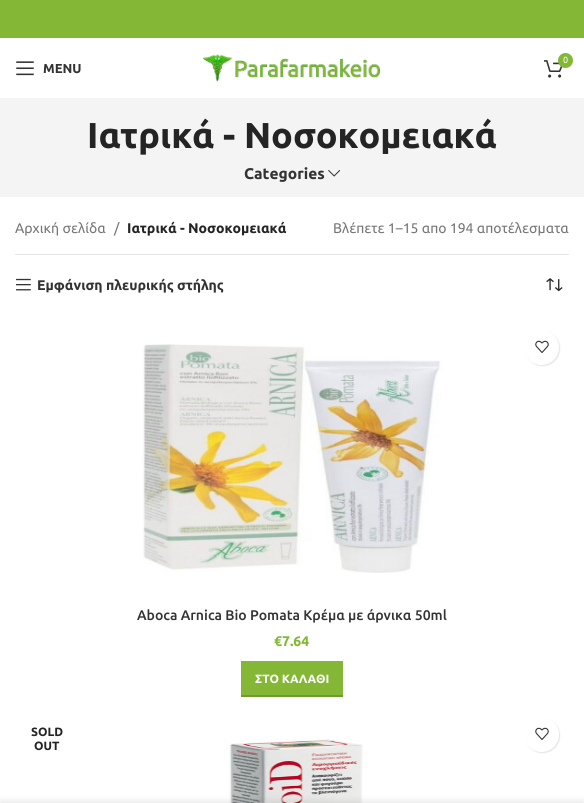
#include <cairo.h>
#include <math.h>
#include <stddef.h>


static void round_rect(cairo_t *cr, double x, double y, double w, double h, double r) {
    cairo_new_sub_path(cr);
    cairo_arc(cr, x + w - r, y + h - r, r, 0, M_PI / 2);
    cairo_arc(cr, x + r, y + h - r, r, M_PI / 2, M_PI);
    cairo_arc(cr, x + r, y + r, r, M_PI, 1.5 * M_PI);
    cairo_arc(cr, x + w - r, y + r, r, 1.5 * M_PI, 2 * M_PI);
    cairo_close_path(cr);
}

static void shadow(cairo_t *cr, double x, double y, double w, double h, double r, double blur, double alpha) {
    cairo_push_group_with_content(cr, CAIRO_CONTENT_ALPHA);
    cairo_set_operator(cr, CAIRO_OPERATOR_SOURCE);
    for (int i = 15; i >= -15 && fmin(w, h) + blur * i / 3 > 0; i -= 2) {
        double e = blur * i / 6;
        cairo_set_source_rgba(cr, 0, 0, 0, alpha * erfc((i - 1) / 8.5) / 2);
        round_rect(cr, x - e, y - e, w + 2 * e, h + 2 * e, fmax(0, fmin(r + e + blur * .6, fmin(w, h) / 2 + e)));
        cairo_fill(cr);
    }
    cairo_pattern_t *soft = cairo_pop_group(cr);
    cairo_mask(cr, soft);
    cairo_pattern_destroy(soft);
}

static void picture(cairo_t *cr, const char *path, double x, double y, double w, double h) {
    cairo_surface_t *image = cairo_image_surface_create_from_png(path);
    cairo_save(cr);
    cairo_set_source_surface(cr, image, x, y);
    cairo_rectangle(cr, x, y, w, h);
    cairo_fill(cr);
    cairo_restore(cr);
    cairo_surface_destroy(image);
}

int main(void) {
    cairo_surface_t *surface = cairo_image_surface_create(CAIRO_FORMAT_RGB24, 584, 803);
    cairo_t *cr = cairo_create(surface);
    cairo_font_options_t *options = cairo_font_options_create();
    cairo_font_options_set_hint_metrics(options, CAIRO_HINT_METRICS_OFF);
    cairo_font_options_set_hint_style(options, CAIRO_HINT_STYLE_NONE);
    cairo_set_font_options(cr, options);
    cairo_set_miter_limit(cr, 4);
    cairo_set_source_rgb(cr, 1, 1, 1);
    cairo_paint(cr);
    cairo_set_source_rgb(cr, 0.514, 0.718, 0.208);
    cairo_rectangle(cr, 0, 0, 584, 38);
    cairo_fill(cr);
    picture(cr, "img1.png", 203, 54, 178, 28);
    picture(cr, "img2.png", 544, 60, 19, 18);
    cairo_arc(cr, 565.5, 60.5, 7.5, 0, 2 * M_PI);
    cairo_fill(cr);
    cairo_select_font_face(cr, "Ubuntu", CAIRO_FONT_SLANT_NORMAL, CAIRO_FONT_WEIGHT_NORMAL);
    cairo_set_font_size(cr, 9);
    cairo_set_source_rgb(cr, 1, 1, 1);
    cairo_move_to(cr, 563, 63);
    cairo_show_text(cr, "0");
    picture(cr, "img3.png", 16, 61, 18, 15);
    cairo_select_font_face(cr, "Ubuntu", CAIRO_FONT_SLANT_NORMAL, CAIRO_FONT_WEIGHT_BOLD);
    cairo_set_font_size(cr, 13);
    cairo_set_source_rgb(cr, 0.2, 0.2, 0.2);
    cairo_move_to(cr, 43, 73);
    cairo_show_text(cr, "MENU");
    cairo_set_source_rgb(cr, 0.957, 0.957, 0.957);
    cairo_rectangle(cr, 0, 98, 584, 99);
    cairo_fill(cr);
    cairo_set_font_size(cr, 36);
    cairo_set_source_rgb(cr, 0.141, 0.141, 0.141);
    cairo_move_to(cr, 87, 148);
    cairo_show_text(cr, "Ιατρικά - Νοσοκομειακά");
    cairo_set_font_size(cr, 15.5);
    cairo_set_source_rgb(cr, 0.2, 0.2, 0.2);
    cairo_move_to(cr, 244, 179);
    cairo_show_text(cr, "Categories");
    picture(cr, "img4.png", 328, 170, 13, 7);
    cairo_set_source_rgb(cr, 0.894, 0.894, 0.894);
    cairo_rectangle(cr, 15, 254, 554, 1);
    cairo_fill(cr);
    cairo_select_font_face(cr, "Ubuntu", CAIRO_FONT_SLANT_NORMAL, CAIRO_FONT_WEIGHT_NORMAL);
    cairo_set_font_size(cr, 14);
    cairo_set_source_rgb(cr, 0.463, 0.463, 0.463);
    cairo_move_to(cr, 15, 233);
    cairo_show_text(cr, "Αρχική σελίδα");
    cairo_move_to(cr, 114, 233);
    cairo_show_text(cr, "/");
    cairo_select_font_face(cr, "Ubuntu", CAIRO_FONT_SLANT_NORMAL, CAIRO_FONT_WEIGHT_BOLD);
    cairo_set_source_rgb(cr, 0.141, 0.141, 0.141);
    cairo_move_to(cr, 127, 233);
    cairo_show_text(cr, "Ιατρικά - Νοσοκομειακά");
    cairo_select_font_face(cr, "Ubuntu", CAIRO_FONT_SLANT_NORMAL, CAIRO_FONT_WEIGHT_NORMAL);
    cairo_set_source_rgb(cr, 0.463, 0.463, 0.463);
    cairo_move_to(cr, 333, 233);
    cairo_show_text(cr, "Βλέπετε 1–15 απο 194 αποτέλεσματα");
    picture(cr, "img5.png", 16, 278, 15, 13);
    cairo_select_font_face(cr, "Ubuntu", CAIRO_FONT_SLANT_NORMAL, CAIRO_FONT_WEIGHT_BOLD);
    cairo_set_source_rgb(cr, 0.2, 0.2, 0.2);
    cairo_move_to(cr, 37, 290);
    cairo_show_text(cr, "Εμφάνιση πλευρικής στήλης");
    picture(cr, "img6.png", 546, 278, 17, 14);
    picture(cr, "img7.png", 142, 344, 301, 229);
    cairo_set_source_rgb(cr, 0, 0, 0);
    shadow(cr, 525, 331, 35, 35, 17.5, 0.5, 0.1);
    cairo_set_source_rgb(cr, 1, 1, 1);
    cairo_arc(cr, 541.5, 347.5, 17.5, 0, 2 * M_PI);
    cairo_fill(cr);
    picture(cr, "img8.png", 535, 340, 14, 13);
    cairo_select_font_face(cr, "Ubuntu Medium", CAIRO_FONT_SLANT_NORMAL, CAIRO_FONT_WEIGHT_NORMAL);
    cairo_set_source_rgb(cr, 0.2, 0.2, 0.2);
    cairo_move_to(cr, 137, 620);
    cairo_show_text(cr, "Aboca Arnica Bio Pomata Κρέμα με άρνικα 50ml");
    cairo_select_font_face(cr, "Ubuntu", CAIRO_FONT_SLANT_NORMAL, CAIRO_FONT_WEIGHT_BOLD);
    cairo_set_source_rgb(cr, 0.514, 0.718, 0.208);
    cairo_move_to(cr, 274, 646);
    cairo_show_text(cr, "€7.64");
    cairo_rectangle(cr, 241, 661, 102, 34);
    cairo_fill(cr);
    cairo_set_source_rgb(cr, 0.435, 0.612, 0.176);
    cairo_rectangle(cr, 241, 695, 102, 2);
    cairo_fill(cr);
    cairo_set_font_size(cr, 12);
    cairo_set_source_rgb(cr, 1, 1, 1);
    cairo_move_to(cr, 255, 683);
    cairo_show_text(cr, "ΣΤΟ ΚΑΛΑΘΙ");
    cairo_set_source_rgb(cr, 0.141, 0.141, 0.141);
    cairo_move_to(cr, 31, 736);
    cairo_show_text(cr, "SOLD");
    cairo_move_to(cr, 34, 750);
    cairo_show_text(cr, "OUT");
    picture(cr, "img9.png", 229, 739, 134, 64);
    cairo_set_source_rgb(cr, 0, 0, 0);
    shadow(cr, 525, 718, 35, 35, 17.5, 0.5, 0.1);
    cairo_set_source_rgb(cr, 1, 1, 1);
    cairo_arc(cr, 541.5, 734.5, 17.5, 0, 2 * M_PI);
    cairo_fill(cr);
    picture(cr, "img8.png", 535, 727, 14, 13);
    cairo_set_source_rgb(cr, 0, 0, 0);
    shadow(cr, 0, 803, 584, 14, 0, 4.5, 0.14);
    cairo_surface_write_to_png(surface, "page.png");
    cairo_font_options_destroy(options);
    cairo_destroy(cr);
    cairo_surface_destroy(surface);
    return 0;
}
